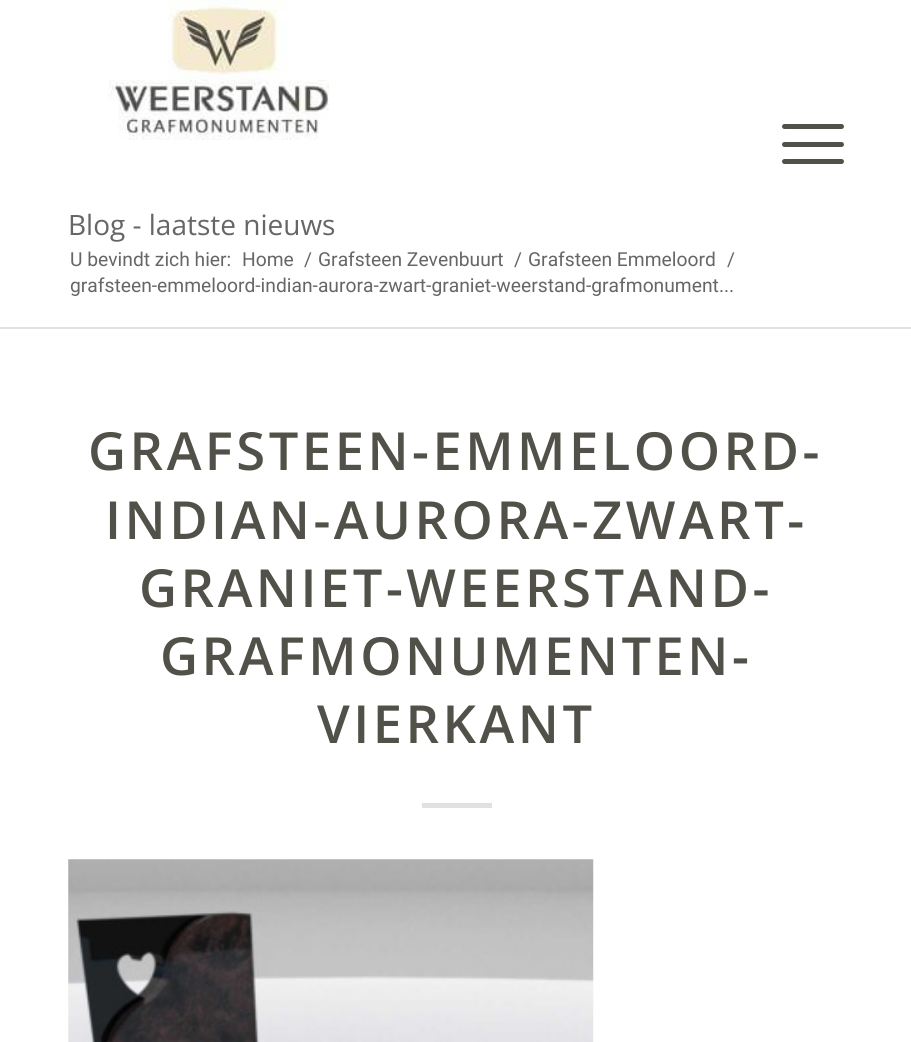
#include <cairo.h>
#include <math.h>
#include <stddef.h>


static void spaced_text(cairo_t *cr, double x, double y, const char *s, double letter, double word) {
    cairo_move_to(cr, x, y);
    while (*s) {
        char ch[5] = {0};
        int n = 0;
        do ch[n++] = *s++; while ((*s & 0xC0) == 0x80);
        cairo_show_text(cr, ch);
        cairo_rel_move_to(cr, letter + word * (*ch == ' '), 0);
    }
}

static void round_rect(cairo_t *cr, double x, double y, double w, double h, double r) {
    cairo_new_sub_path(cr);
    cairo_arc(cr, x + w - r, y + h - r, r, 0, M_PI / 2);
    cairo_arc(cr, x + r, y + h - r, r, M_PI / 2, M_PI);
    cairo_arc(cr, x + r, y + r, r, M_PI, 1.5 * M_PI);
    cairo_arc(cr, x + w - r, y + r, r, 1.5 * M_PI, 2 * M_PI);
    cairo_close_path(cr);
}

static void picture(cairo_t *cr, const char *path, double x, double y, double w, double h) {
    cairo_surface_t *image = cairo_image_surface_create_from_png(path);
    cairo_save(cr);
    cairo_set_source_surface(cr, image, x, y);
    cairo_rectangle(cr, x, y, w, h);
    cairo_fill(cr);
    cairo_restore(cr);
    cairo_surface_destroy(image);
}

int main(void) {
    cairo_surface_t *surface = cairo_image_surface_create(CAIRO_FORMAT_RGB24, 911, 1042);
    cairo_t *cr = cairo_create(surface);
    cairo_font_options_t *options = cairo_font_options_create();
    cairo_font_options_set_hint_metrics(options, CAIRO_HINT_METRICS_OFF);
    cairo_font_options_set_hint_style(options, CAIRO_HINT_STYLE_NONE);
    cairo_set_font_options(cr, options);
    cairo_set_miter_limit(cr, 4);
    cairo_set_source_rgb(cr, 1, 1, 1);
    cairo_paint(cr);
    picture(cr, "img1.png", 108, 0, 221, 140);
    cairo_set_source_rgb(cr, 0.322, 0.318, 0.286);
    round_rect(cr, 782, 142, 62, 5, 2.5);
    cairo_fill(cr);
    round_rect(cr, 782, 124, 62, 5, 2.5);
    cairo_fill(cr);
    round_rect(cr, 782, 159, 62, 5, 2.5);
    cairo_fill(cr);
    cairo_select_font_face(cr, "Open Sans", CAIRO_FONT_SLANT_NORMAL, CAIRO_FONT_WEIGHT_NORMAL);
    cairo_set_font_size(cr, 28);
    cairo_set_source_rgb(cr, 0.4, 0.4, 0.4);
    cairo_move_to(cr, 68, 235);
    cairo_show_text(cr, "Blog - laatste nieuws");
    cairo_select_font_face(cr, "Roboto", CAIRO_FONT_SLANT_NORMAL, CAIRO_FONT_WEIGHT_NORMAL);
    cairo_set_font_size(cr, 19.25);
    cairo_move_to(cr, 70, 266);
    cairo_show_text(cr, "U bevindt zich hier:");
    cairo_move_to(cr, 242, 266);
    cairo_show_text(cr, "Home");
    cairo_move_to(cr, 304, 266);
    cairo_show_text(cr, "/");
    cairo_move_to(cr, 318, 266);
    cairo_show_text(cr, "Grafsteen Zevenbuurt");
    cairo_move_to(cr, 514, 266);
    cairo_show_text(cr, "/");
    cairo_move_to(cr, 528, 266);
    cairo_show_text(cr, "Grafsteen Emmeloord");
    cairo_move_to(cr, 727, 266);
    cairo_show_text(cr, "/");
    cairo_move_to(cr, 70, 292);
    cairo_show_text(cr, "grafsteen-emmeloord-indian-aurora-zwart-graniet-weerstand-grafmonument...");
    cairo_set_source_rgb(cr, 0.882, 0.882, 0.882);
    cairo_rectangle(cr, 0, 327, 911, 2);
    cairo_fill(cr);
    cairo_select_font_face(cr, "Open Sans SemiBold", CAIRO_FONT_SLANT_NORMAL, CAIRO_FONT_WEIGHT_NORMAL);
    cairo_set_font_size(cr, 52.5);
    cairo_set_source_rgb(cr, 0.322, 0.318, 0.286);
    spaced_text(cr, 88, 470, "GRAFSTEEN-EMMELOORD-", 3.5, 0);
    spaced_text(cr, 105, 539, "INDIAN-AURORA-ZWART-", 3.5, 0);
    spaced_text(cr, 139, 607, "GRANIET-WEERSTAND-", 3.5, 0);
    spaced_text(cr, 160, 675, "GRAFMONUMENTEN-", 3.5, 0);
    spaced_text(cr, 317, 743, "VIERKANT", 3.5, 0);
    cairo_set_source_rgb(cr, 0.882, 0.882, 0.882);
    cairo_rectangle(cr, 422, 803, 70, 5);
    cairo_fill(cr);
    picture(cr, "img2.png", 68, 859, 526, 183);
    cairo_surface_write_to_png(surface, "page.png");
    cairo_font_options_destroy(options);
    cairo_destroy(cr);
    cairo_surface_destroy(surface);
    return 0;
}
